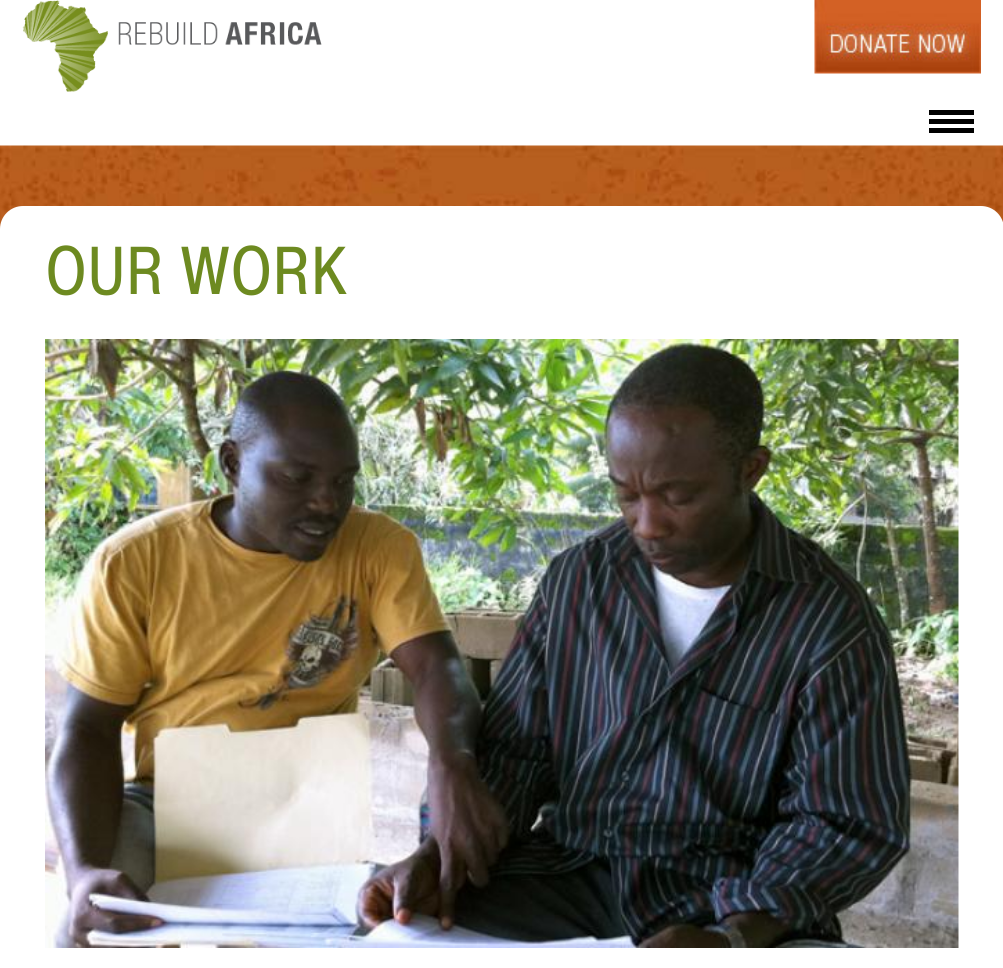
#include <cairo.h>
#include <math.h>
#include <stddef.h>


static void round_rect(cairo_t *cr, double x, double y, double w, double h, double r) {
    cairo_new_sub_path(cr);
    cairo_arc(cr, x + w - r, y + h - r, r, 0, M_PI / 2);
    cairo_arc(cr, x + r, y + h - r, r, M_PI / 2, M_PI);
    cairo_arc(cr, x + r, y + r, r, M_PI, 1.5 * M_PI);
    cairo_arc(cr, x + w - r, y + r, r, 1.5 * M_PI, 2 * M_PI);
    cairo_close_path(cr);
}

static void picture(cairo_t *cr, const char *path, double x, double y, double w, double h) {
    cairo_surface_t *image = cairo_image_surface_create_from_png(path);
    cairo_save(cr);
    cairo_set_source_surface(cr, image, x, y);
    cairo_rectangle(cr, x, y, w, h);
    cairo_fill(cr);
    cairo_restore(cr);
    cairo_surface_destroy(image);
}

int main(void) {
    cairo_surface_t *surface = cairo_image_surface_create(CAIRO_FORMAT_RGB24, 1003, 968);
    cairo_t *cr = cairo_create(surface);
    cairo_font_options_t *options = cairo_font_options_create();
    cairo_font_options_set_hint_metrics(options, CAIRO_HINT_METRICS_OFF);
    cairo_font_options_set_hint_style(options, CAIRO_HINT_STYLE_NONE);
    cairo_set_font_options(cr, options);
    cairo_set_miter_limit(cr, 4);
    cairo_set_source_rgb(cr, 1, 1, 1);
    cairo_paint(cr);
    picture(cr, "img1.png", 22, 0, 300, 92);
    picture(cr, "img2.png", 814, 0, 167, 74);
    cairo_set_source_rgb(cr, 0, 0, 0);
    cairo_rectangle(cr, 929, 110, 45, 5);
    cairo_fill(cr);
    cairo_rectangle(cr, 929, 119, 45, 5);
    cairo_fill(cr);
    cairo_rectangle(cr, 929, 128, 45, 5);
    cairo_fill(cr);
    picture(cr, "img3.png", 0, 145, 1003, 84);
    cairo_set_source_rgb(cr, 1, 1, 1);
    round_rect(cr, 0, 206, 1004, 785, 23);
    cairo_fill(cr);
    cairo_select_font_face(cr, "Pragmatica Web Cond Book", CAIRO_FONT_SLANT_NORMAL, CAIRO_FONT_WEIGHT_NORMAL);
    cairo_set_font_size(cr, 67.5);
    cairo_set_source_rgb(cr, 0.427, 0.541, 0.125);
    cairo_move_to(cr, 45, 294);
    cairo_show_text(cr, "OUR WORK");
    picture(cr, "img4.png", 45, 339, 914, 609);
    cairo_surface_write_to_png(surface, "page.png");
    cairo_font_options_destroy(options);
    cairo_destroy(cr);
    cairo_surface_destroy(surface);
    return 0;
}
